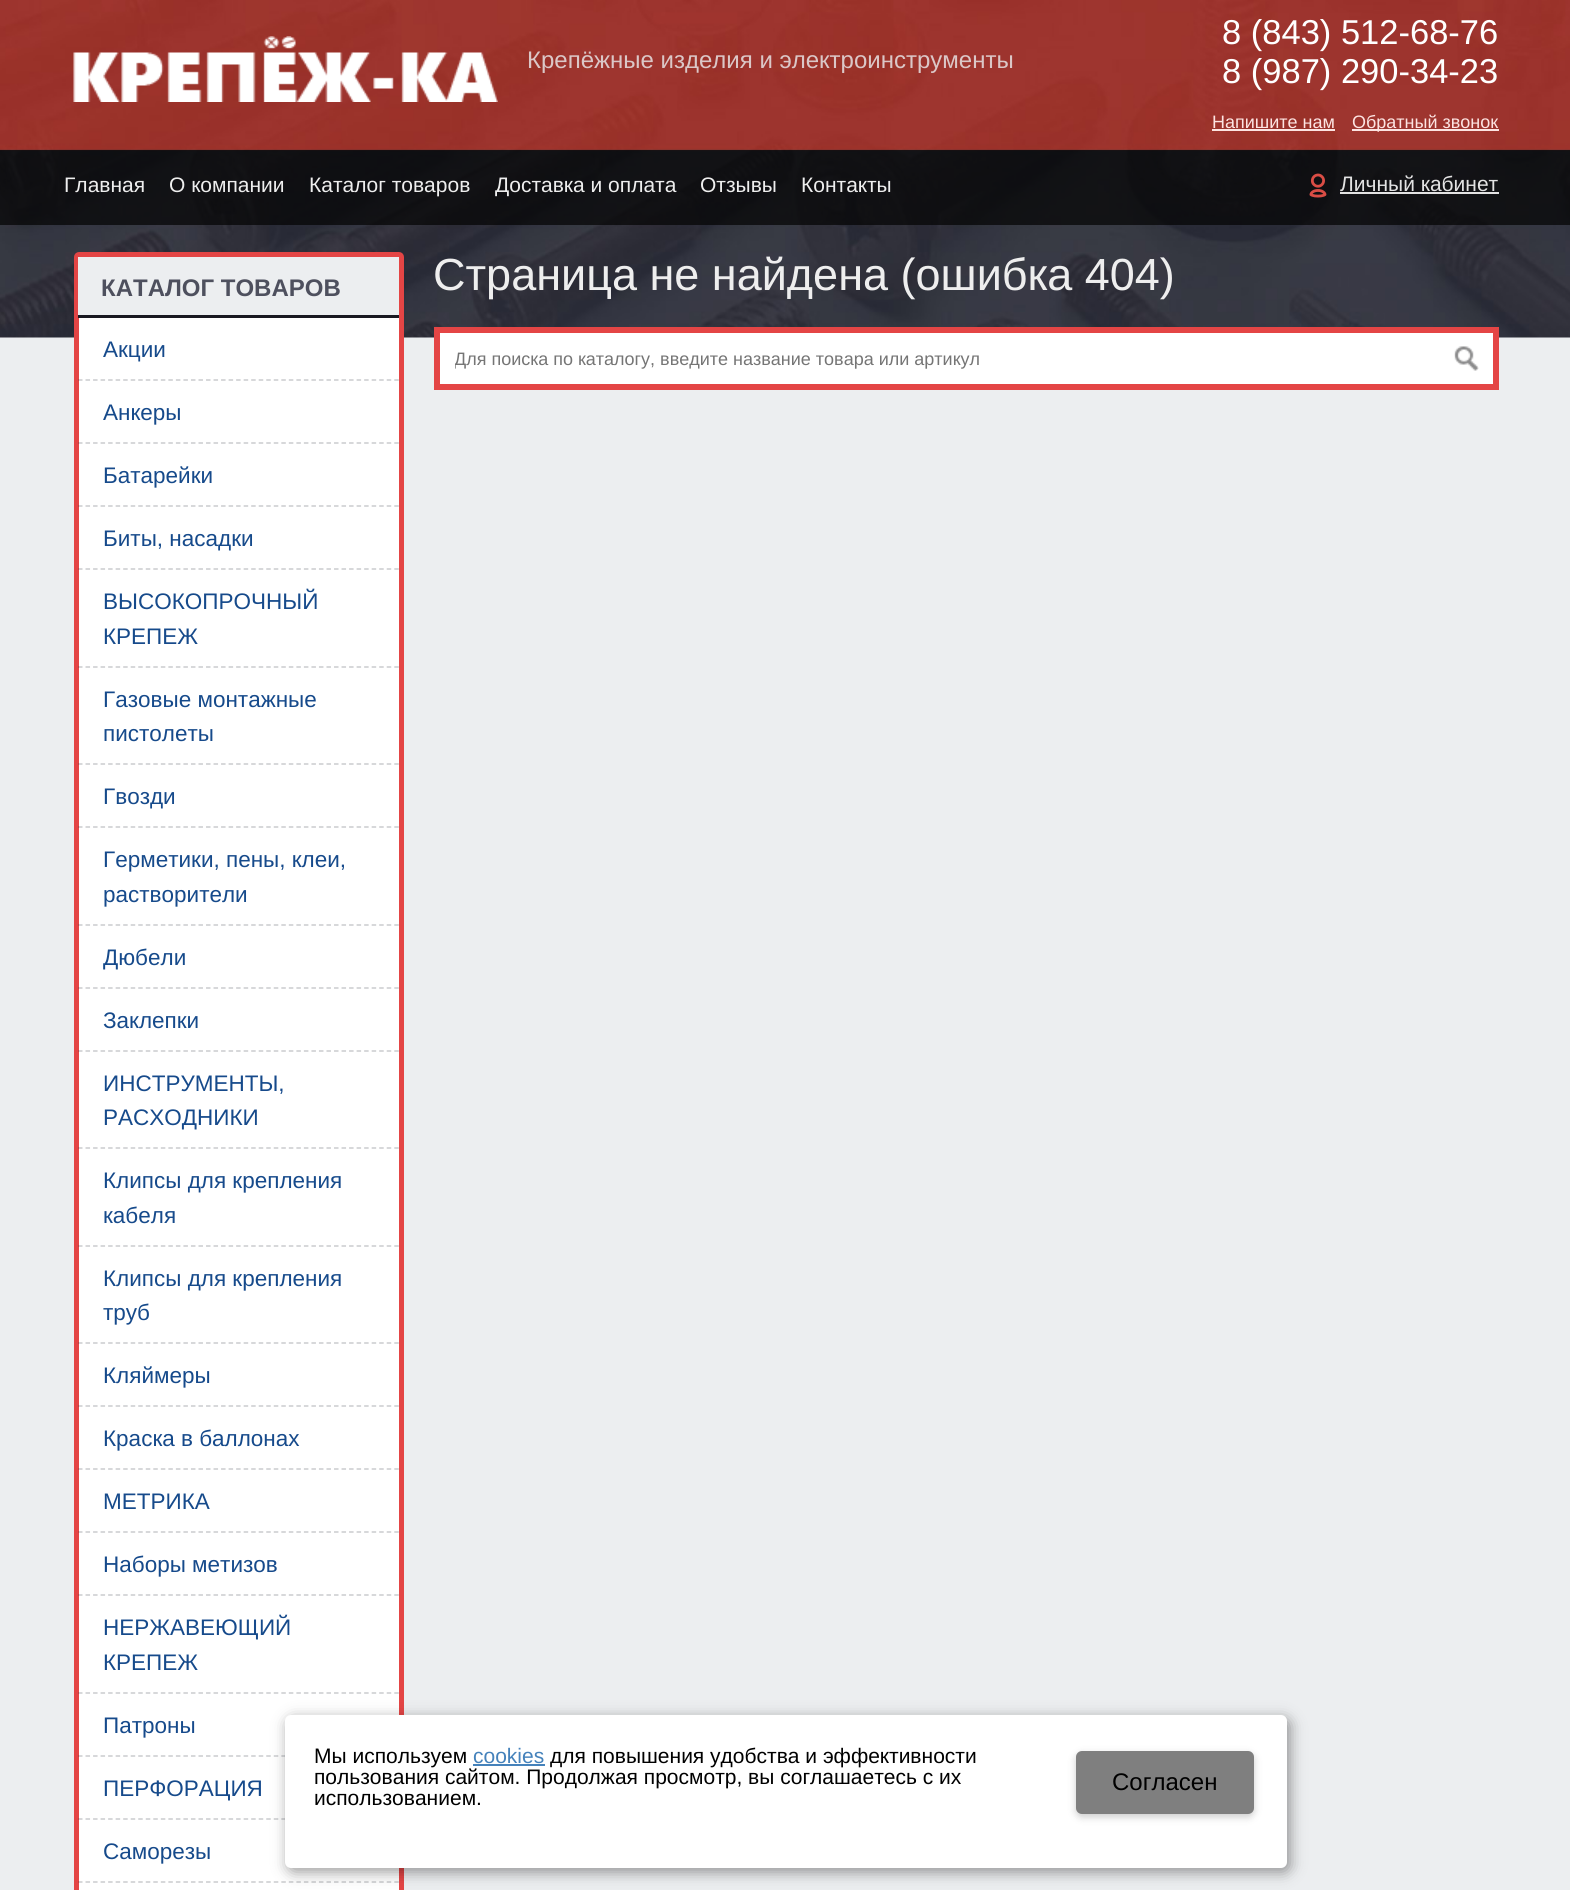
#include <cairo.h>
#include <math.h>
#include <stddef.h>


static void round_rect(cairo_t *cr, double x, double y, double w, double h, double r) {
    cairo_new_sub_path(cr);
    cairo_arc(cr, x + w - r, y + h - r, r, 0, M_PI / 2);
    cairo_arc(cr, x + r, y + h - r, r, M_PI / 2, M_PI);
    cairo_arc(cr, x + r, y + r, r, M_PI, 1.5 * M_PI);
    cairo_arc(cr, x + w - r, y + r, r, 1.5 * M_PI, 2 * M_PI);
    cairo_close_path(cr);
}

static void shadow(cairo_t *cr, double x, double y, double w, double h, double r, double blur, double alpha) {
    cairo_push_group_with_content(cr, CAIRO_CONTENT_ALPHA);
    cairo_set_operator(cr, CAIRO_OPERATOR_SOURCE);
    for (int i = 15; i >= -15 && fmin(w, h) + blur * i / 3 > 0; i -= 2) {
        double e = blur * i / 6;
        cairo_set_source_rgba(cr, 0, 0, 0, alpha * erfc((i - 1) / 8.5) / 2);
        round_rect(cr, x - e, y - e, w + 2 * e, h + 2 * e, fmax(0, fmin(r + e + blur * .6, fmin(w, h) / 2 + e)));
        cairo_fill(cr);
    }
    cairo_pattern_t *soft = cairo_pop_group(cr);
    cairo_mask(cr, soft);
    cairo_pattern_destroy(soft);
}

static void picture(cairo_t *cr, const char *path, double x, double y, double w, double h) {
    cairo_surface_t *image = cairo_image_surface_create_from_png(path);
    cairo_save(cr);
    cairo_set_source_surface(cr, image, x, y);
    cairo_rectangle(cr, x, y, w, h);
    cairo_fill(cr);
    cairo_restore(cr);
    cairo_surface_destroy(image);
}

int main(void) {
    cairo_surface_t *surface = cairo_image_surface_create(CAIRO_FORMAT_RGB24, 1570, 1890);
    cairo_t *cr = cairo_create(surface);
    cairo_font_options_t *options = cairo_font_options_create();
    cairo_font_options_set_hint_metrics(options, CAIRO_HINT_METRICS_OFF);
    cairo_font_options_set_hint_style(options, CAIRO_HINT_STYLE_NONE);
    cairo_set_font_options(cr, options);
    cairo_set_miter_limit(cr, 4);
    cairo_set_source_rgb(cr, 0.925, 0.933, 0.941);
    cairo_paint(cr);
    picture(cr, "img1.png", 0, 0, 1570, 338);
    picture(cr, "img2.png", 73, 36, 425, 66);
    cairo_select_font_face(cr, "Liberation Sans", CAIRO_FONT_SLANT_NORMAL, CAIRO_FONT_WEIGHT_NORMAL);
    cairo_set_font_size(cr, 24);
    cairo_set_source_rgb(cr, 0.859, 0.78, 0.78);
    cairo_move_to(cr, 527, 68);
    cairo_show_text(cr, "Крепёжные изделия и электроинструменты");
    cairo_set_font_size(cr, 34.5);
    cairo_set_source_rgb(cr, 1, 1, 1);
    cairo_move_to(cr, 1222, 44);
    cairo_show_text(cr, "8 (843) 512-68-76");
    cairo_move_to(cr, 1222, 83);
    cairo_show_text(cr, "8 (987) 290-34-23");
    cairo_set_font_size(cr, 18);
    cairo_set_source_rgb(cr, 0.992, 0.894, 0.886);
    cairo_move_to(cr, 1212, 128);
    cairo_show_text(cr, "Напишите нам");
    cairo_rectangle(cr, 1212, 129, 123, 2);
    cairo_fill(cr);
    cairo_rectangle(cr, 1352, 129, 147, 2);
    cairo_fill(cr);
    cairo_move_to(cr, 1352, 128);
    cairo_show_text(cr, "Обратный звонок");
    cairo_set_source_rgba(cr, 0.02, 0.02, 0.02, 0.73);
    cairo_rectangle(cr, 0, 150, 1570, 75);
    cairo_fill(cr);
    picture(cr, "img3.png", 1309, 173, 18, 25);
    cairo_set_font_size(cr, 21);
    cairo_set_source_rgb(cr, 0.89, 0.89, 0.89);
    cairo_move_to(cr, 1340, 191);
    cairo_show_text(cr, "Личный кабинет");
    cairo_rectangle(cr, 1340, 192, 159, 2);
    cairo_fill(cr);
    cairo_set_source_rgb(cr, 0.933, 0.933, 0.933);
    cairo_move_to(cr, 64, 192);
    cairo_show_text(cr, "Главная");
    cairo_move_to(cr, 169, 192);
    cairo_show_text(cr, "О компании");
    cairo_move_to(cr, 309, 192);
    cairo_show_text(cr, "Каталог товаров");
    cairo_move_to(cr, 495, 192);
    cairo_show_text(cr, "Доставка и оплата");
    cairo_move_to(cr, 700, 192);
    cairo_show_text(cr, "Отзывы");
    cairo_move_to(cr, 801, 192);
    cairo_show_text(cr, "Контакты");
    cairo_set_source_rgb(cr, 1, 1, 1);
    round_rect(cr, 76.5, 254.5, 325, 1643, 2.5);
    cairo_fill_preserve(cr);
    cairo_set_source_rgb(cr, 0.894, 0.271, 0.271);
    cairo_set_line_width(cr, 5);
    cairo_stroke(cr);
    cairo_set_source_rgb(cr, 0.925, 0.933, 0.941);
    cairo_rectangle(cr, 78, 257, 321, 58);
    cairo_fill(cr);
    cairo_set_source_rgb(cr, 0.098, 0.098, 0.129);
    cairo_rectangle(cr, 78, 315, 321, 3);
    cairo_fill(cr);
    cairo_select_font_face(cr, "Liberation Sans", CAIRO_FONT_SLANT_NORMAL, CAIRO_FONT_WEIGHT_BOLD);
    cairo_set_font_size(cr, 24);
    cairo_set_source_rgb(cr, 0.306, 0.314, 0.369);
    cairo_move_to(cr, 101, 296);
    cairo_show_text(cr, "КАТАЛОГ ТОВАРОВ");
    cairo_new_path(cr);
    cairo_move_to(cr, 78, 380);
    cairo_line_to(cr, 399, 380);
    cairo_set_source_rgba(cr, 0.18, 0.188, 0.239, 0.25);
    cairo_set_line_width(cr, 1.5);
    cairo_set_dash(cr, (double[]){4.5, 3.03}, 2, 0);
    cairo_stroke(cr);
    cairo_select_font_face(cr, "Liberation Sans", CAIRO_FONT_SLANT_NORMAL, CAIRO_FONT_WEIGHT_NORMAL);
    cairo_set_font_size(cr, 22.5);
    cairo_set_source_rgb(cr, 0.086, 0.29, 0.545);
    cairo_move_to(cr, 103, 357);
    cairo_show_text(cr, "Акции");
    cairo_new_path(cr);
    cairo_move_to(cr, 78, 443);
    cairo_line_to(cr, 399, 443);
    cairo_set_source_rgba(cr, 0.18, 0.188, 0.239, 0.25);
    cairo_stroke(cr);
    cairo_set_source_rgb(cr, 0.086, 0.29, 0.545);
    cairo_move_to(cr, 103, 420);
    cairo_show_text(cr, "Анкеры");
    cairo_new_path(cr);
    cairo_move_to(cr, 78, 506);
    cairo_line_to(cr, 399, 506);
    cairo_set_source_rgba(cr, 0.18, 0.188, 0.239, 0.25);
    cairo_stroke(cr);
    cairo_set_source_rgb(cr, 0.086, 0.29, 0.545);
    cairo_move_to(cr, 103, 483);
    cairo_show_text(cr, "Батарейки");
    cairo_new_path(cr);
    cairo_move_to(cr, 78, 569);
    cairo_line_to(cr, 399, 569);
    cairo_set_source_rgba(cr, 0.18, 0.188, 0.239, 0.25);
    cairo_stroke(cr);
    cairo_set_source_rgb(cr, 0.086, 0.29, 0.545);
    cairo_move_to(cr, 103, 546);
    cairo_show_text(cr, "Биты, насадки");
    cairo_new_path(cr);
    cairo_move_to(cr, 78, 667);
    cairo_line_to(cr, 399, 667);
    cairo_set_source_rgba(cr, 0.18, 0.188, 0.239, 0.25);
    cairo_stroke(cr);
    cairo_set_source_rgb(cr, 0.086, 0.29, 0.545);
    cairo_move_to(cr, 103, 609);
    cairo_show_text(cr, "ВЫСОКОПРОЧНЫЙ");
    cairo_move_to(cr, 103, 644);
    cairo_show_text(cr, "КРЕПЕЖ");
    cairo_new_path(cr);
    cairo_move_to(cr, 78, 764);
    cairo_line_to(cr, 399, 764);
    cairo_set_source_rgba(cr, 0.18, 0.188, 0.239, 0.25);
    cairo_stroke(cr);
    cairo_set_source_rgb(cr, 0.086, 0.29, 0.545);
    cairo_move_to(cr, 103, 707);
    cairo_show_text(cr, "Газовые монтажные");
    cairo_move_to(cr, 103, 741);
    cairo_show_text(cr, "пистолеты");
    cairo_new_path(cr);
    cairo_move_to(cr, 78, 827);
    cairo_line_to(cr, 399, 827);
    cairo_set_source_rgba(cr, 0.18, 0.188, 0.239, 0.25);
    cairo_stroke(cr);
    cairo_set_source_rgb(cr, 0.086, 0.29, 0.545);
    cairo_move_to(cr, 103, 804);
    cairo_show_text(cr, "Гвозди");
    cairo_new_path(cr);
    cairo_move_to(cr, 78, 925);
    cairo_line_to(cr, 399, 925);
    cairo_set_source_rgba(cr, 0.18, 0.188, 0.239, 0.25);
    cairo_stroke(cr);
    cairo_set_source_rgb(cr, 0.086, 0.29, 0.545);
    cairo_move_to(cr, 103, 867);
    cairo_show_text(cr, "Герметики, пены, клеи,");
    cairo_move_to(cr, 103, 902);
    cairo_show_text(cr, "растворители");
    cairo_new_path(cr);
    cairo_move_to(cr, 78, 988);
    cairo_line_to(cr, 399, 988);
    cairo_set_source_rgba(cr, 0.18, 0.188, 0.239, 0.25);
    cairo_stroke(cr);
    cairo_set_source_rgb(cr, 0.086, 0.29, 0.545);
    cairo_move_to(cr, 103, 965);
    cairo_show_text(cr, "Дюбели");
    cairo_new_path(cr);
    cairo_move_to(cr, 78, 1051);
    cairo_line_to(cr, 399, 1051);
    cairo_set_source_rgba(cr, 0.18, 0.188, 0.239, 0.25);
    cairo_stroke(cr);
    cairo_set_source_rgb(cr, 0.086, 0.29, 0.545);
    cairo_move_to(cr, 103, 1028);
    cairo_show_text(cr, "Заклепки");
    cairo_new_path(cr);
    cairo_move_to(cr, 78, 1148);
    cairo_line_to(cr, 399, 1148);
    cairo_set_source_rgba(cr, 0.18, 0.188, 0.239, 0.25);
    cairo_stroke(cr);
    cairo_set_source_rgb(cr, 0.086, 0.29, 0.545);
    cairo_move_to(cr, 103, 1091);
    cairo_show_text(cr, "ИНСТРУМЕНТЫ,");
    cairo_move_to(cr, 103, 1125);
    cairo_show_text(cr, "РАСХОДНИКИ");
    cairo_new_path(cr);
    cairo_move_to(cr, 78, 1246);
    cairo_line_to(cr, 399, 1246);
    cairo_set_source_rgba(cr, 0.18, 0.188, 0.239, 0.25);
    cairo_stroke(cr);
    cairo_set_source_rgb(cr, 0.086, 0.29, 0.545);
    cairo_move_to(cr, 103, 1188);
    cairo_show_text(cr, "Клипсы для крепления");
    cairo_move_to(cr, 103, 1223);
    cairo_show_text(cr, "кабеля");
    cairo_new_path(cr);
    cairo_move_to(cr, 78, 1343);
    cairo_line_to(cr, 399, 1343);
    cairo_set_source_rgba(cr, 0.18, 0.188, 0.239, 0.25);
    cairo_stroke(cr);
    cairo_set_source_rgb(cr, 0.086, 0.29, 0.545);
    cairo_move_to(cr, 103, 1286);
    cairo_show_text(cr, "Клипсы для крепления");
    cairo_move_to(cr, 103, 1320);
    cairo_show_text(cr, "труб");
    cairo_new_path(cr);
    cairo_move_to(cr, 78, 1406);
    cairo_line_to(cr, 399, 1406);
    cairo_set_source_rgba(cr, 0.18, 0.188, 0.239, 0.25);
    cairo_stroke(cr);
    cairo_set_source_rgb(cr, 0.086, 0.29, 0.545);
    cairo_move_to(cr, 103, 1383);
    cairo_show_text(cr, "Кляймеры");
    cairo_new_path(cr);
    cairo_move_to(cr, 78, 1469);
    cairo_line_to(cr, 399, 1469);
    cairo_set_source_rgba(cr, 0.18, 0.188, 0.239, 0.25);
    cairo_stroke(cr);
    cairo_set_source_rgb(cr, 0.086, 0.29, 0.545);
    cairo_move_to(cr, 103, 1446);
    cairo_show_text(cr, "Краска в баллонах");
    cairo_new_path(cr);
    cairo_move_to(cr, 78, 1532);
    cairo_line_to(cr, 399, 1532);
    cairo_set_source_rgba(cr, 0.18, 0.188, 0.239, 0.25);
    cairo_stroke(cr);
    cairo_set_source_rgb(cr, 0.086, 0.29, 0.545);
    cairo_move_to(cr, 103, 1509);
    cairo_show_text(cr, "МЕТРИКА");
    cairo_new_path(cr);
    cairo_move_to(cr, 78, 1595);
    cairo_line_to(cr, 399, 1595);
    cairo_set_source_rgba(cr, 0.18, 0.188, 0.239, 0.25);
    cairo_stroke(cr);
    cairo_set_source_rgb(cr, 0.086, 0.29, 0.545);
    cairo_move_to(cr, 103, 1572);
    cairo_show_text(cr, "Наборы метизов");
    cairo_new_path(cr);
    cairo_move_to(cr, 78, 1693);
    cairo_line_to(cr, 399, 1693);
    cairo_set_source_rgba(cr, 0.18, 0.188, 0.239, 0.25);
    cairo_stroke(cr);
    cairo_set_source_rgb(cr, 0.086, 0.29, 0.545);
    cairo_move_to(cr, 103, 1635);
    cairo_show_text(cr, "НЕРЖАВЕЮЩИЙ");
    cairo_move_to(cr, 103, 1670);
    cairo_show_text(cr, "КРЕПЕЖ");
    cairo_new_path(cr);
    cairo_move_to(cr, 78, 1756);
    cairo_line_to(cr, 399, 1756);
    cairo_set_source_rgba(cr, 0.18, 0.188, 0.239, 0.25);
    cairo_stroke(cr);
    cairo_set_source_rgb(cr, 0.086, 0.29, 0.545);
    cairo_move_to(cr, 103, 1733);
    cairo_show_text(cr, "Патроны");
    cairo_new_path(cr);
    cairo_move_to(cr, 78, 1819);
    cairo_line_to(cr, 399, 1819);
    cairo_set_source_rgba(cr, 0.18, 0.188, 0.239, 0.25);
    cairo_stroke(cr);
    cairo_set_source_rgb(cr, 0.086, 0.29, 0.545);
    cairo_move_to(cr, 103, 1796);
    cairo_show_text(cr, "ПЕРФОРАЦИЯ");
    cairo_new_path(cr);
    cairo_move_to(cr, 78, 1882);
    cairo_line_to(cr, 399, 1882);
    cairo_set_source_rgba(cr, 0.18, 0.188, 0.239, 0.25);
    cairo_stroke(cr);
    cairo_set_source_rgb(cr, 0.086, 0.29, 0.545);
    cairo_move_to(cr, 103, 1859);
    cairo_show_text(cr, "Саморезы");
    cairo_set_font_size(cr, 45);
    cairo_set_source_rgb(cr, 0.933, 0.933, 0.933);
    cairo_move_to(cr, 433, 290);
    cairo_show_text(cr, "Страница не найдена (ошибка 404)");
    cairo_set_source_rgb(cr, 1, 1, 1);
    cairo_rectangle(cr, 437, 330, 1059, 57);
    cairo_fill_preserve(cr);
    cairo_set_source_rgb(cr, 0.894, 0.271, 0.271);
    cairo_set_line_width(cr, 6);
    cairo_set_dash(cr, NULL, 0, 0);
    cairo_stroke(cr);
    cairo_save(cr);
    cairo_rectangle(cr, 455, 348, 993, 21);
    cairo_clip(cr);
    cairo_set_font_size(cr, 18);
    cairo_set_source_rgb(cr, 0.459, 0.459, 0.459);
    cairo_move_to(cr, 454, 365);
    cairo_show_text(cr, "Для поиска по каталогу, введите название товара или артикул");
    cairo_restore(cr);
    picture(cr, "img4.png", 1454, 346, 25, 25);
    cairo_set_source_rgb(cr, 0, 0, 0);
    shadow(cr, 288, 1719, 1002, 153, 6, 7.5, 0.4);
    cairo_set_source_rgb(cr, 1, 1, 1);
    round_rect(cr, 285, 1715, 1002, 153, 6);
    cairo_fill(cr);
    cairo_set_font_size(cr, 21);
    cairo_set_source_rgb(cr, 0, 0, 0);
    cairo_move_to(cr, 314, 1763);
    cairo_show_text(cr, "Мы используем");
    cairo_set_source_rgb(cr, 0.271, 0.51, 0.733);
    cairo_move_to(cr, 473, 1763);
    cairo_show_text(cr, "cookies");
    cairo_rectangle(cr, 473, 1764, 72, 2);
    cairo_fill(cr);
    cairo_set_source_rgb(cr, 0, 0, 0);
    cairo_move_to(cr, 550, 1763);
    cairo_show_text(cr, "для повышения удобства и эффективности");
    cairo_move_to(cr, 314, 1784);
    cairo_show_text(cr, "пользования сайтом. Продолжая просмотр, вы соглашаетесь с их");
    cairo_move_to(cr, 314, 1805);
    cairo_show_text(cr, "использованием.");
    cairo_set_source_rgb(cr, 0, 0, 0);
    shadow(cr, 1076, 1754, 178, 63, 6, 4, 0.2);
    cairo_set_source_rgb(cr, 0.498, 0.498, 0.498);
    round_rect(cr, 1076, 1751, 178, 63, 6);
    cairo_fill(cr);
    cairo_set_font_size(cr, 24);
    cairo_set_source_rgb(cr, 0, 0, 0);
    cairo_move_to(cr, 1112, 1790);
    cairo_show_text(cr, "Cогласен");
    cairo_surface_write_to_png(surface, "page.png");
    cairo_font_options_destroy(options);
    cairo_destroy(cr);
    cairo_surface_destroy(surface);
    return 0;
}
